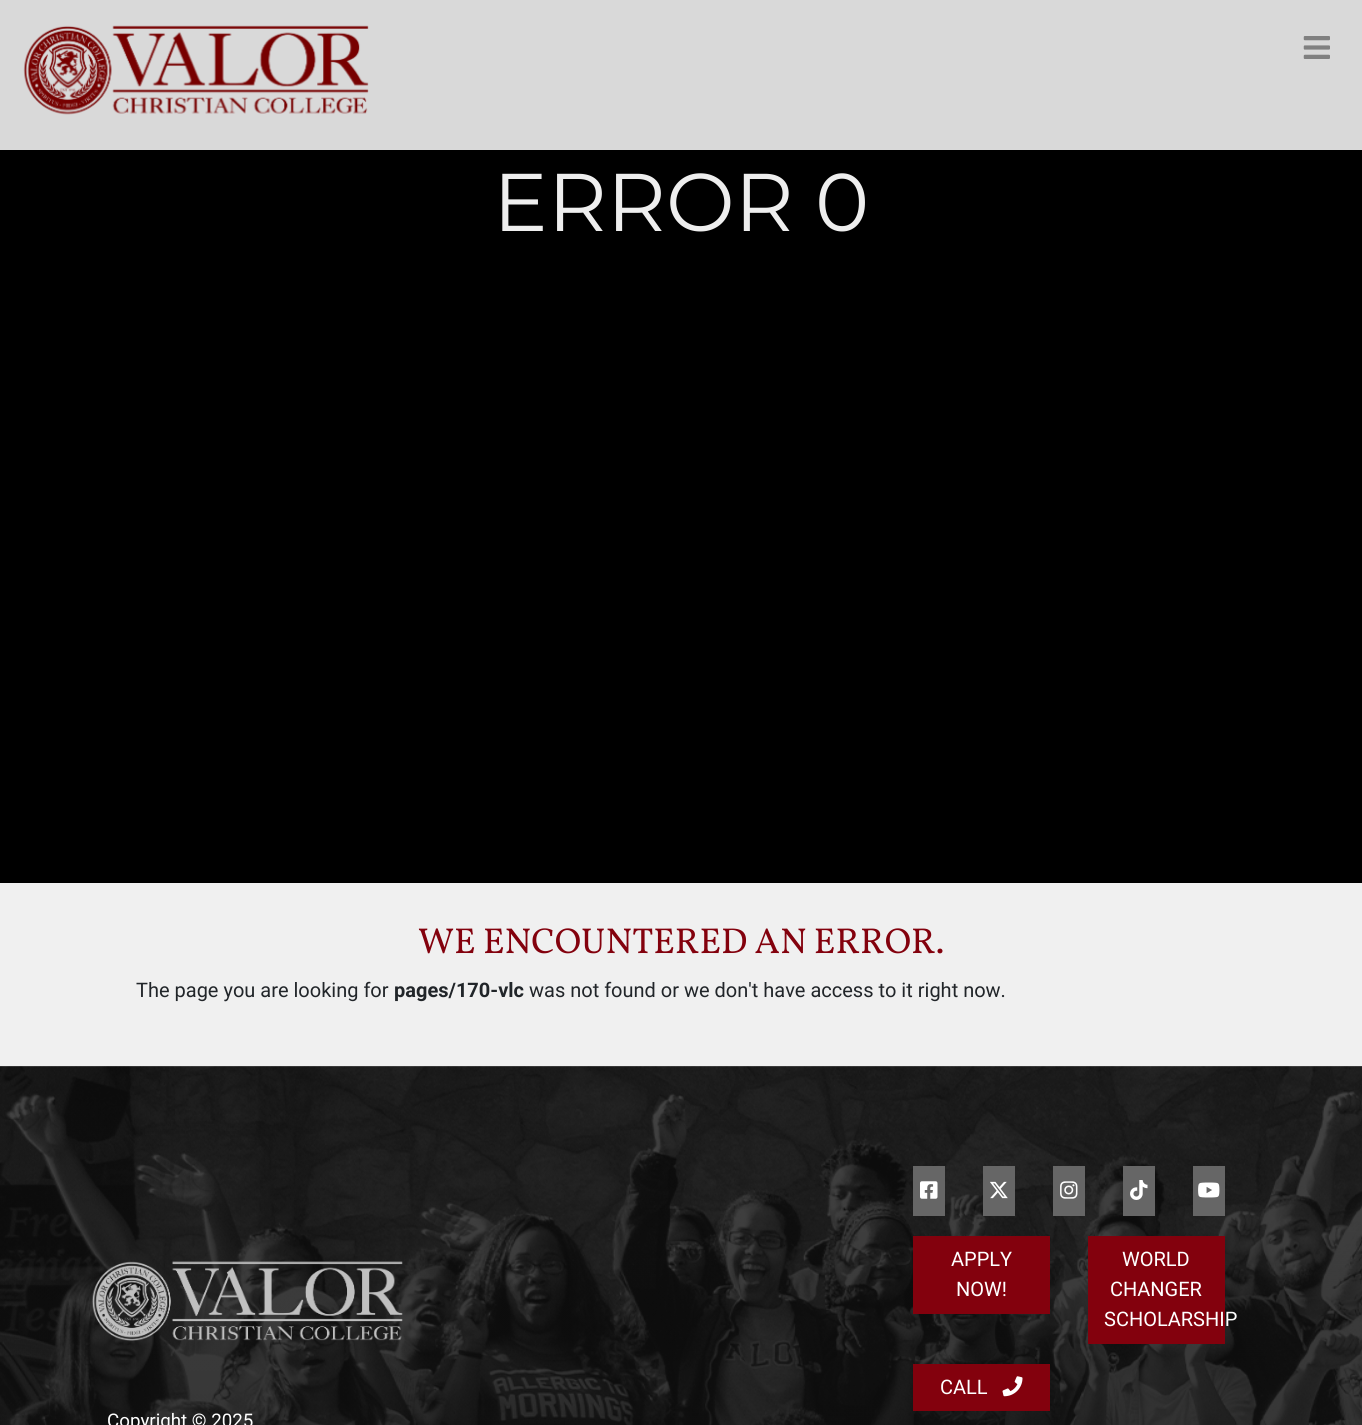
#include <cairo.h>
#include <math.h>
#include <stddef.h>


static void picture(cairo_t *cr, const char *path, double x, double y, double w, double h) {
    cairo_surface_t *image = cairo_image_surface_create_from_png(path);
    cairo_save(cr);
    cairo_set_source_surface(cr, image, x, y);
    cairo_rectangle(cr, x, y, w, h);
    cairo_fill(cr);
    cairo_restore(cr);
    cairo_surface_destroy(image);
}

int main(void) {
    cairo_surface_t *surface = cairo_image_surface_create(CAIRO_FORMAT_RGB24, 1362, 1425);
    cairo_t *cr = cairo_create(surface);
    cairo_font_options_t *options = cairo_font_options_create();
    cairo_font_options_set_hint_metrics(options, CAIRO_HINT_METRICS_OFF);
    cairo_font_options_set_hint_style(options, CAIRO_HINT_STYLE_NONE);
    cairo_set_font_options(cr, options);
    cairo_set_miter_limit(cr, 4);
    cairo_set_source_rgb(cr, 1, 1, 1);
    cairo_paint(cr);
    cairo_set_source_rgb(cr, 0.851, 0.851, 0.851);
    cairo_rectangle(cr, 0, 0, 1362, 150);
    cairo_fill(cr);
    picture(cr, "img1.png", 1303, 36, 27, 23);
    picture(cr, "img2.png", 23, 25, 346, 90);
    cairo_set_source_rgb(cr, 0, 0, 0);
    cairo_rectangle(cr, 0, 150, 1362, 733);
    cairo_fill(cr);
    cairo_select_font_face(cr, "Montserrat", CAIRO_FONT_SLANT_NORMAL, CAIRO_FONT_WEIGHT_NORMAL);
    cairo_set_font_size(cr, 81.75);
    cairo_set_source_rgb(cr, 0.933, 0.933, 0.933);
    cairo_move_to(cr, 493, 231);
    cairo_show_text(cr, "ERROR 0");
    cairo_set_source_rgb(cr, 0.941, 0.941, 0.941);
    cairo_rectangle(cr, 0, 883, 1362, 183);
    cairo_fill(cr);
    cairo_select_font_face(cr, "Vollkorn", CAIRO_FONT_SLANT_NORMAL, CAIRO_FONT_WEIGHT_NORMAL);
    cairo_set_font_size(cr, 36);
    cairo_set_source_rgb(cr, 0.514, 0.004, 0.051);
    cairo_move_to(cr, 418, 953);
    cairo_show_text(cr, "WE ENCOUNTERED AN ERROR.");
    cairo_select_font_face(cr, "Roboto", CAIRO_FONT_SLANT_NORMAL, CAIRO_FONT_WEIGHT_NORMAL);
    cairo_set_font_size(cr, 20);
    cairo_set_source_rgb(cr, 0.129, 0.145, 0.161);
    cairo_move_to(cr, 136, 997);
    cairo_show_text(cr, "The page you are looking for");
    cairo_select_font_face(cr, "Roboto", CAIRO_FONT_SLANT_NORMAL, CAIRO_FONT_WEIGHT_BOLD);
    cairo_move_to(cr, 394, 997);
    cairo_show_text(cr, "pages/170-vlc");
    cairo_select_font_face(cr, "Roboto", CAIRO_FONT_SLANT_NORMAL, CAIRO_FONT_WEIGHT_NORMAL);
    cairo_move_to(cr, 529, 997);
    cairo_show_text(cr, "was not found or we don't have access to it right now.");
    picture(cr, "img3.png", 0, 1066, 1362, 359);
    cairo_set_source_rgb(cr, 0.4, 0.4, 0.4);
    cairo_rectangle(cr, 913, 1166, 32, 50);
    cairo_fill(cr);
    picture(cr, "img4.png", 920, 1181, 18, 18);
    cairo_rectangle(cr, 983, 1166, 32, 50);
    cairo_fill(cr);
    picture(cr, "img5.png", 990, 1181, 18, 18);
    cairo_rectangle(cr, 1053, 1166, 32, 50);
    cairo_fill(cr);
    picture(cr, "img6.png", 1060, 1181, 18, 18);
    cairo_rectangle(cr, 1123, 1166, 32, 50);
    cairo_fill(cr);
    picture(cr, "img7.png", 1130, 1180, 18, 20);
    cairo_rectangle(cr, 1193, 1166, 32, 50);
    cairo_fill(cr);
    picture(cr, "img8.png", 1198, 1182, 22, 16);
    cairo_set_source_rgb(cr, 0.514, 0.004, 0.051);
    cairo_rectangle(cr, 913, 1236, 137, 78);
    cairo_fill(cr);
    cairo_set_source_rgb(cr, 1, 1, 1);
    cairo_move_to(cr, 951, 1266);
    cairo_show_text(cr, "APPLY");
    cairo_move_to(cr, 956, 1296);
    cairo_show_text(cr, "NOW!");
    cairo_set_source_rgb(cr, 0.514, 0.004, 0.051);
    cairo_rectangle(cr, 1088, 1236, 137, 108);
    cairo_fill(cr);
    cairo_set_source_rgb(cr, 1, 1, 1);
    cairo_move_to(cr, 1122, 1266);
    cairo_show_text(cr, "WORLD");
    cairo_move_to(cr, 1110, 1296);
    cairo_show_text(cr, "CHANGER");
    cairo_move_to(cr, 1104, 1326);
    cairo_show_text(cr, "SCHOLARSHIP");
    cairo_set_source_rgb(cr, 0.514, 0.004, 0.051);
    cairo_rectangle(cr, 913, 1364, 137, 47);
    cairo_fill(cr);
    cairo_set_source_rgb(cr, 1, 1, 1);
    cairo_move_to(cr, 940, 1394);
    cairo_show_text(cr, "CALL");
    picture(cr, "img9.png", 1002, 1376, 21, 21);
    picture(cr, "img10.png", 92, 1261, 311, 80);
    cairo_set_font_size(cr, 18.75);
    cairo_move_to(cr, 107, 1427);
    cairo_show_text(cr, "Copyright © 2025");
    cairo_surface_write_to_png(surface, "page.png");
    cairo_font_options_destroy(options);
    cairo_destroy(cr);
    cairo_surface_destroy(surface);
    return 0;
}
